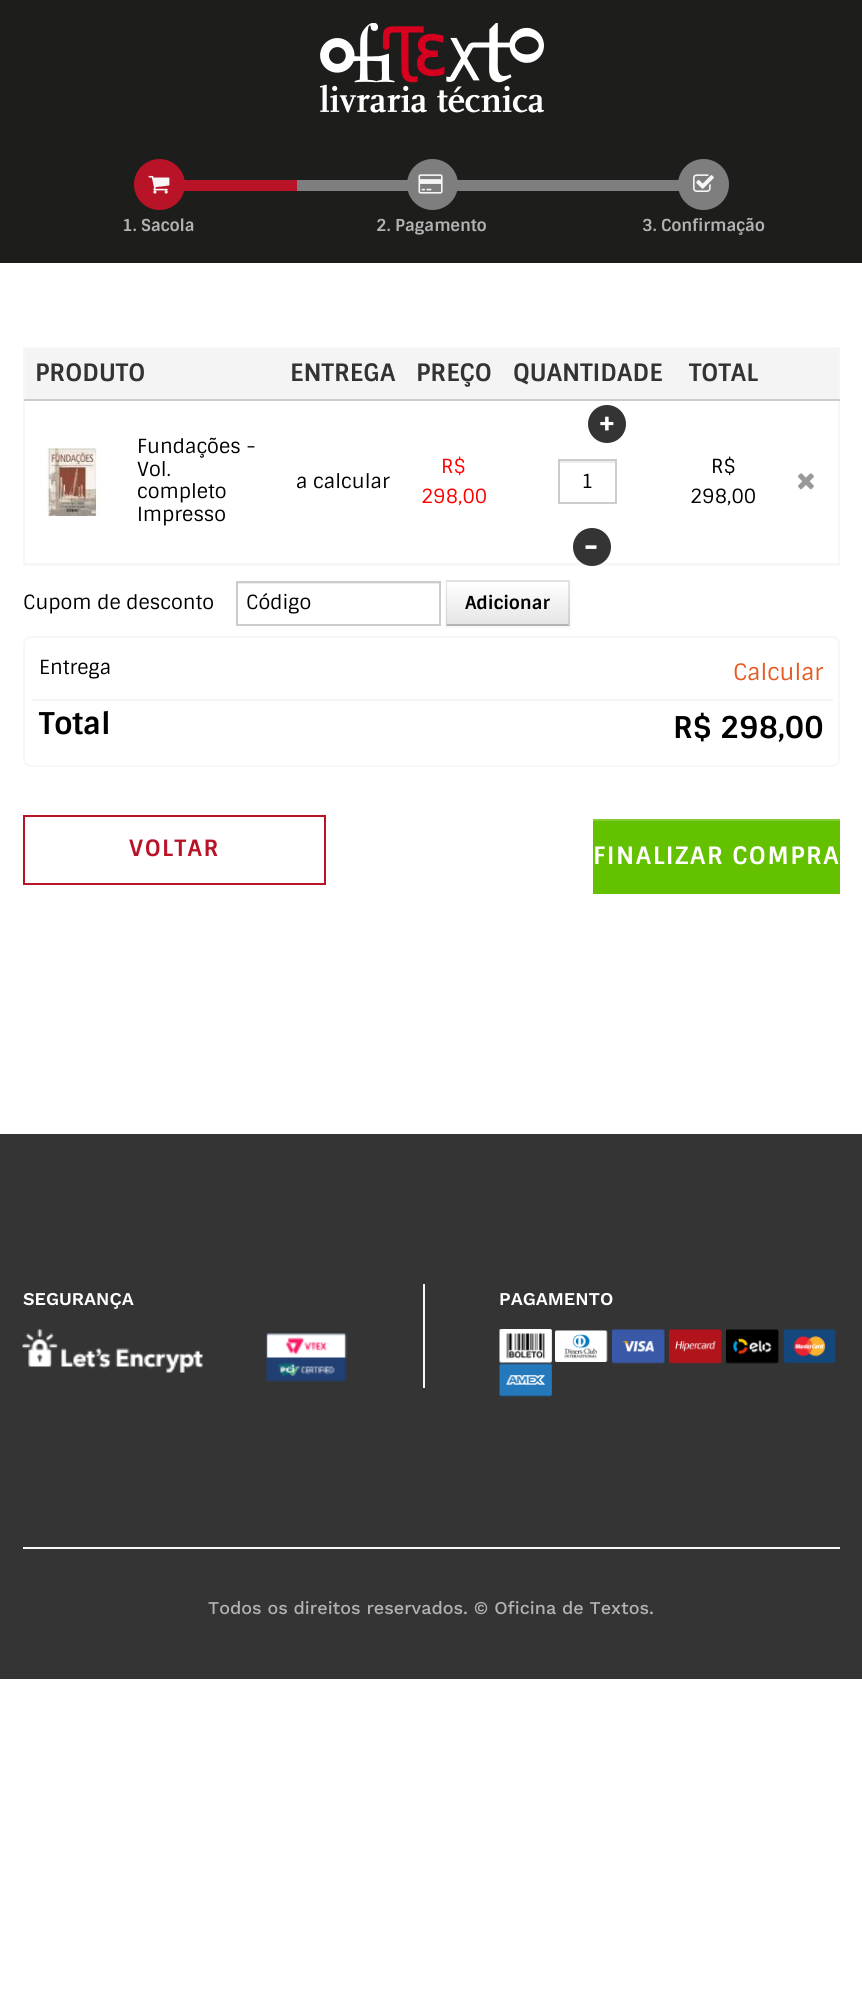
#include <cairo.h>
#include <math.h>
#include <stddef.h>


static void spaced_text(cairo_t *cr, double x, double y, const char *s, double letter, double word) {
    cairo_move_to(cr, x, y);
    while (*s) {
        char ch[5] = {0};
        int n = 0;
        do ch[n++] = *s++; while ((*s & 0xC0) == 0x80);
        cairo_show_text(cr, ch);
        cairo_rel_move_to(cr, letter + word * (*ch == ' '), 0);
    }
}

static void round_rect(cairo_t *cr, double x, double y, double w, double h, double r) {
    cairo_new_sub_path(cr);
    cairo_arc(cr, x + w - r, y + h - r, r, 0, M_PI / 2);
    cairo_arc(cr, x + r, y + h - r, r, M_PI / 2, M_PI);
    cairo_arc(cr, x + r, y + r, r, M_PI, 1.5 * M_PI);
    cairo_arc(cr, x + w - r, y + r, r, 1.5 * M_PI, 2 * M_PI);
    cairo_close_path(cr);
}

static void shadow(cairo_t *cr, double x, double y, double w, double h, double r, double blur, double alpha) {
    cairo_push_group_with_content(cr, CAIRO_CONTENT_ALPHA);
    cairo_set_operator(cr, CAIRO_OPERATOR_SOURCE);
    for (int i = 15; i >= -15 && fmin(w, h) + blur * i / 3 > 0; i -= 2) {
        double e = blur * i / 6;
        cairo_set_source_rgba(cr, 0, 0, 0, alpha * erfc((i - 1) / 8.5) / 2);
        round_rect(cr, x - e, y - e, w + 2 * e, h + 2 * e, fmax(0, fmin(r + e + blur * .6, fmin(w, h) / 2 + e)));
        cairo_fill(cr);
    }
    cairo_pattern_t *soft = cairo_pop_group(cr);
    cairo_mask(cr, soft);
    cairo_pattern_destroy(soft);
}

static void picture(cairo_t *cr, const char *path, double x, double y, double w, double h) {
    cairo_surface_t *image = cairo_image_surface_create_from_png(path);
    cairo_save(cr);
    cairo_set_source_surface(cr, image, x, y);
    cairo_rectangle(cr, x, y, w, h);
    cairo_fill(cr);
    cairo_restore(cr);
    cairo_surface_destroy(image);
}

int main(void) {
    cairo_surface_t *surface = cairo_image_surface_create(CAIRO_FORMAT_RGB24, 862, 2000);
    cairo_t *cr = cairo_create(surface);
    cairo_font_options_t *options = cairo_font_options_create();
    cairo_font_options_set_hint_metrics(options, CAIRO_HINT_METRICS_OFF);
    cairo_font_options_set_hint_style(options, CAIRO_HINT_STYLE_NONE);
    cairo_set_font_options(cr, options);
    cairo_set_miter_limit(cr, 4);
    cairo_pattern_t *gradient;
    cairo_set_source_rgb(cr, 1, 1, 1);
    cairo_paint(cr);
    cairo_set_source_rgb(cr, 0.114, 0.114, 0.106);
    cairo_rectangle(cr, 0, 0, 862, 263);
    cairo_fill(cr);
    picture(cr, "img1.png", 320, 23, 224, 90);
    cairo_set_source_rgb(cr, 0.494, 0.494, 0.494);
    cairo_rectangle(cr, 297, 180, 382, 11);
    cairo_fill(cr);
    cairo_set_source_rgb(cr, 0.722, 0.075, 0.153);
    cairo_rectangle(cr, 184, 180, 113, 11);
    cairo_fill(cr);
    cairo_arc(cr, 159.5, 184.5, 25.5, 0, 2 * M_PI);
    cairo_fill(cr);
    picture(cr, "img2.png", 148, 175, 22, 19);
    cairo_select_font_face(cr, "Sintony", CAIRO_FONT_SLANT_NORMAL, CAIRO_FONT_WEIGHT_BOLD);
    cairo_set_font_size(cr, 16.5);
    cairo_set_source_rgb(cr, 0.698, 0.698, 0.698);
    cairo_move_to(cr, 122, 231);
    cairo_show_text(cr, "1. Sacola");
    cairo_set_source_rgb(cr, 0.494, 0.494, 0.494);
    cairo_new_path(cr);
    cairo_arc(cr, 432.5, 184.5, 25.5, 0, 2 * M_PI);
    cairo_fill(cr);
    picture(cr, "img3.png", 418, 174, 25, 20);
    cairo_set_source_rgb(cr, 0.698, 0.698, 0.698);
    cairo_move_to(cr, 376, 231);
    cairo_show_text(cr, "2. Pagamento");
    cairo_set_source_rgb(cr, 0.494, 0.494, 0.494);
    cairo_new_path(cr);
    cairo_arc(cr, 703.5, 184.5, 25.5, 0, 2 * M_PI);
    cairo_fill(cr);
    picture(cr, "img4.png", 693, 174, 21, 18);
    cairo_set_source_rgb(cr, 0.698, 0.698, 0.698);
    cairo_move_to(cr, 642, 231);
    cairo_show_text(cr, "3. Confirmação");
    cairo_rectangle(cr, 24, 348, 815, 217);
    cairo_set_source_rgb(cr, 0.965, 0.965, 0.965);
    cairo_stroke(cr);
    cairo_set_source_rgb(cr, 0.957, 0.957, 0.957);
    cairo_rectangle(cr, 25, 349, 813, 50);
    cairo_fill(cr);
    cairo_set_font_size(cr, 24);
    cairo_set_source_rgb(cr, 0.2, 0.2, 0.2);
    cairo_move_to(cr, 35, 381);
    cairo_show_text(cr, "PRODUTO");
    cairo_move_to(cr, 290, 381);
    cairo_show_text(cr, "ENTREGA");
    cairo_move_to(cr, 416, 381);
    cairo_show_text(cr, "PREÇO");
    cairo_move_to(cr, 513, 381);
    cairo_show_text(cr, "QUANTIDADE");
    cairo_move_to(cr, 689, 381);
    cairo_show_text(cr, "TOTAL");
    cairo_set_source_rgb(cr, 0.8, 0.8, 0.8);
    cairo_rectangle(cr, 24, 399, 816, 2);
    cairo_fill(cr);
    cairo_set_source_rgb(cr, 0.965, 0.965, 0.965);
    cairo_rectangle(cr, 24, 563, 816, 1);
    cairo_fill(cr);
    picture(cr, "img5.png", 47, 448, 54, 68);
    cairo_select_font_face(cr, "Sintony", CAIRO_FONT_SLANT_NORMAL, CAIRO_FONT_WEIGHT_NORMAL);
    cairo_set_font_size(cr, 19.5);
    cairo_set_source_rgb(cr, 0, 0, 0);
    cairo_move_to(cr, 137, 453);
    cairo_show_text(cr, "Fundações -");
    cairo_move_to(cr, 137, 476);
    cairo_show_text(cr, "Vol.");
    cairo_move_to(cr, 137, 498);
    cairo_show_text(cr, "completo");
    cairo_move_to(cr, 137, 521);
    cairo_show_text(cr, "Impresso");
    cairo_move_to(cr, 296, 488);
    cairo_show_text(cr, "a calcular");
    cairo_set_source_rgb(cr, 1, 0, 0);
    cairo_move_to(cr, 441, 473);
    cairo_show_text(cr, "R$");
    cairo_move_to(cr, 421, 503);
    cairo_show_text(cr, "298,00");
    cairo_set_source_rgb(cr, 0.204, 0.204, 0.204);
    cairo_new_path(cr);
    cairo_arc(cr, 607, 424, 19, 0, 2 * M_PI);
    cairo_fill(cr);
    cairo_select_font_face(cr, "Work Sans", CAIRO_FONT_SLANT_NORMAL, CAIRO_FONT_WEIGHT_BOLD);
    cairo_set_font_size(cr, 26);
    cairo_set_source_rgb(cr, 1, 1, 1);
    cairo_move_to(cr, 599, 432);
    cairo_show_text(cr, "+");
    cairo_set_source_rgb(cr, 0.925, 0.925, 0.925);
    cairo_rectangle(cr, 560, 461, 55, 2);
    cairo_fill(cr);
    cairo_rectangle(cr, 559, 460, 57, 43);
    cairo_set_source_rgb(cr, 0.8, 0.8, 0.8);
    cairo_stroke(cr);
    cairo_select_font_face(cr, "Sintony", CAIRO_FONT_SLANT_NORMAL, CAIRO_FONT_WEIGHT_NORMAL);
    cairo_set_font_size(cr, 19.5);
    cairo_set_source_rgb(cr, 0, 0, 0);
    cairo_move_to(cr, 581, 488);
    cairo_show_text(cr, "1");
    cairo_set_source_rgb(cr, 0.204, 0.204, 0.204);
    cairo_new_path(cr);
    cairo_arc(cr, 592, 547, 19, 0, 2 * M_PI);
    cairo_fill(cr);
    cairo_select_font_face(cr, "Liberation Serif", CAIRO_FONT_SLANT_NORMAL, CAIRO_FONT_WEIGHT_BOLD);
    cairo_set_font_size(cr, 42);
    cairo_set_source_rgb(cr, 1, 1, 1);
    cairo_move_to(cr, 584, 557);
    cairo_show_text(cr, "-");
    cairo_select_font_face(cr, "Sintony", CAIRO_FONT_SLANT_NORMAL, CAIRO_FONT_WEIGHT_NORMAL);
    cairo_set_font_size(cr, 19.5);
    cairo_set_source_rgb(cr, 0, 0, 0);
    cairo_move_to(cr, 711, 473);
    cairo_show_text(cr, "R$");
    cairo_move_to(cr, 690, 503);
    cairo_show_text(cr, "298,00");
    picture(cr, "img6.png", 798, 473, 16, 17);
    cairo_move_to(cr, 23, 609);
    cairo_show_text(cr, "Cupom de desconto");
    cairo_set_source_rgb(cr, 0.925, 0.925, 0.925);
    cairo_rectangle(cr, 237, 583, 203, 1);
    cairo_fill(cr);
    cairo_rectangle(cr, 237, 582, 203, 43);
    cairo_set_source_rgb(cr, 0.8, 0.8, 0.8);
    cairo_stroke(cr);
    cairo_set_source_rgb(cr, 0, 0, 0);
    cairo_move_to(cr, 246, 609);
    cairo_show_text(cr, "Código");
    cairo_set_source_rgb(cr, 0, 0, 0);
    shadow(cr, 446, 582, 124, 45, 0, 1.5, 0.05);
    cairo_set_source_rgb(cr, 0.961, 0.961, 0.961);
    cairo_rectangle(cr, 446, 581, 124, 45);
    cairo_fill(cr);
    gradient = cairo_pattern_create_linear(508, 582, 508, 624);
    cairo_pattern_add_color_stop_rgba(gradient, 0, 1, 1, 1, 1);
    cairo_pattern_add_color_stop_rgba(gradient, 1, 0.902, 0.902, 0.902, 1);
    cairo_set_source(cr, gradient);
    cairo_pattern_destroy(gradient);
    cairo_rectangle(cr, 446, 582, 124, 42);
    cairo_fill(cr);
    cairo_set_source_rgba(cr, 0, 0, 0, 0.1);
    cairo_new_path(cr);
    cairo_move_to(cr, 446, 580);
    cairo_line_to(cr, 570, 580);
    cairo_line_to(cr, 568, 582);
    cairo_line_to(cr, 447, 582);
    cairo_close_path(cr);
    cairo_fill(cr);
    cairo_new_path(cr);
    cairo_move_to(cr, 570, 580);
    cairo_line_to(cr, 570, 626);
    cairo_line_to(cr, 568, 624);
    cairo_line_to(cr, 568, 582);
    cairo_close_path(cr);
    cairo_fill(cr);
    cairo_set_source_rgb(cr, 0.702, 0.702, 0.702);
    cairo_new_path(cr);
    cairo_move_to(cr, 570, 626);
    cairo_line_to(cr, 446, 626);
    cairo_line_to(cr, 447, 624);
    cairo_line_to(cr, 568, 624);
    cairo_close_path(cr);
    cairo_fill(cr);
    cairo_set_source_rgba(cr, 0, 0, 0, 0.1);
    cairo_new_path(cr);
    cairo_move_to(cr, 446, 626);
    cairo_line_to(cr, 446, 580);
    cairo_line_to(cr, 447, 582);
    cairo_line_to(cr, 447, 624);
    cairo_close_path(cr);
    cairo_fill(cr);
    cairo_select_font_face(cr, "Sintony", CAIRO_FONT_SLANT_NORMAL, CAIRO_FONT_WEIGHT_BOLD);
    cairo_set_font_size(cr, 18);
    cairo_set_source_rgb(cr, 0, 0, 0);
    cairo_move_to(cr, 465, 609);
    cairo_show_text(cr, "Adicionar");
    round_rect(cr, 24, 637, 815, 129, 7);
    cairo_set_source_rgb(cr, 0.965, 0.965, 0.965);
    cairo_stroke(cr);
    cairo_set_source_rgb(cr, 0.957, 0.957, 0.957);
    cairo_rectangle(cr, 32, 699, 801, 2);
    cairo_fill(cr);
    cairo_select_font_face(cr, "Sintony", CAIRO_FONT_SLANT_NORMAL, CAIRO_FONT_WEIGHT_NORMAL);
    cairo_set_font_size(cr, 19.5);
    cairo_set_source_rgb(cr, 0, 0, 0);
    cairo_move_to(cr, 39, 674);
    cairo_show_text(cr, "Entrega");
    cairo_set_font_size(cr, 22.5);
    cairo_set_source_rgb(cr, 0.902, 0.353, 0.133);
    cairo_move_to(cr, 733, 680);
    cairo_show_text(cr, "Calcular");
    cairo_select_font_face(cr, "Sintony", CAIRO_FONT_SLANT_NORMAL, CAIRO_FONT_WEIGHT_BOLD);
    cairo_set_font_size(cr, 30);
    cairo_set_source_rgb(cr, 0, 0, 0);
    cairo_move_to(cr, 39, 734);
    cairo_show_text(cr, "Total");
    cairo_move_to(cr, 673, 738);
    cairo_show_text(cr, "R$ 298,00");
    cairo_rectangle(cr, 24, 816, 301, 68);
    cairo_set_source_rgb(cr, 0.722, 0.075, 0.153);
    cairo_stroke(cr);
    cairo_set_font_size(cr, 22.5);
    spaced_text(cr, 129, 856, "VOLTAR", 1.5, 0);
    cairo_set_source_rgb(cr, 0.392, 0.757, 0);
    cairo_rectangle(cr, 593, 821, 247, 73);
    cairo_fill(cr);
    cairo_set_source_rgb(cr, 0.514, 0.804, 0.2);
    cairo_rectangle(cr, 593, 819, 247, 2);
    cairo_fill(cr);
    cairo_set_font_size(cr, 24);
    cairo_set_source_rgb(cr, 1, 1, 1);
    spaced_text(cr, 593, 864, "FINALIZAR COMPRA", 1.5, 0);
    cairo_set_source_rgb(cr, 0.204, 0.204, 0.204);
    cairo_rectangle(cr, 0, 1134, 862, 545);
    cairo_fill(cr);
    cairo_set_source_rgb(cr, 0.965, 0.965, 0.965);
    cairo_rectangle(cr, 423, 1284, 2, 104);
    cairo_fill(cr);
    cairo_select_font_face(cr, "Work Sans SemiBold", CAIRO_FONT_SLANT_NORMAL, CAIRO_FONT_WEIGHT_NORMAL);
    cairo_set_font_size(cr, 18);
    cairo_set_source_rgb(cr, 1, 1, 1);
    cairo_move_to(cr, 23, 1305);
    cairo_show_text(cr, "SEGURANÇA");
    picture(cr, "img7.png", 22, 1329, 181, 44);
    picture(cr, "img8.png", 265, 1333, 82, 49);
    cairo_move_to(cr, 499, 1305);
    cairo_show_text(cr, "PAGAMENTO");
    picture(cr, "img9.png", 499, 1329, 53, 34);
    picture(cr, "img10.png", 555, 1330, 53, 32);
    picture(cr, "img11.png", 612, 1329, 53, 35);
    picture(cr, "img12.png", 669, 1329, 53, 35);
    picture(cr, "img13.png", 726, 1329, 53, 35);
    picture(cr, "img14.png", 783, 1329, 53, 35);
    picture(cr, "img15.png", 499, 1363, 53, 34);
    cairo_set_source_rgb(cr, 0.965, 0.965, 0.965);
    cairo_rectangle(cr, 23, 1547, 817, 2);
    cairo_fill(cr);
    cairo_select_font_face(cr, "Work Sans Medium", CAIRO_FONT_SLANT_NORMAL, CAIRO_FONT_WEIGHT_NORMAL);
    cairo_set_source_rgb(cr, 0.698, 0.698, 0.698);
    cairo_move_to(cr, 208, 1614);
    cairo_show_text(cr, "Todos os direitos reservados. © Oficina de Textos.");
    cairo_surface_write_to_png(surface, "page.png");
    cairo_font_options_destroy(options);
    cairo_destroy(cr);
    cairo_surface_destroy(surface);
    return 0;
}
